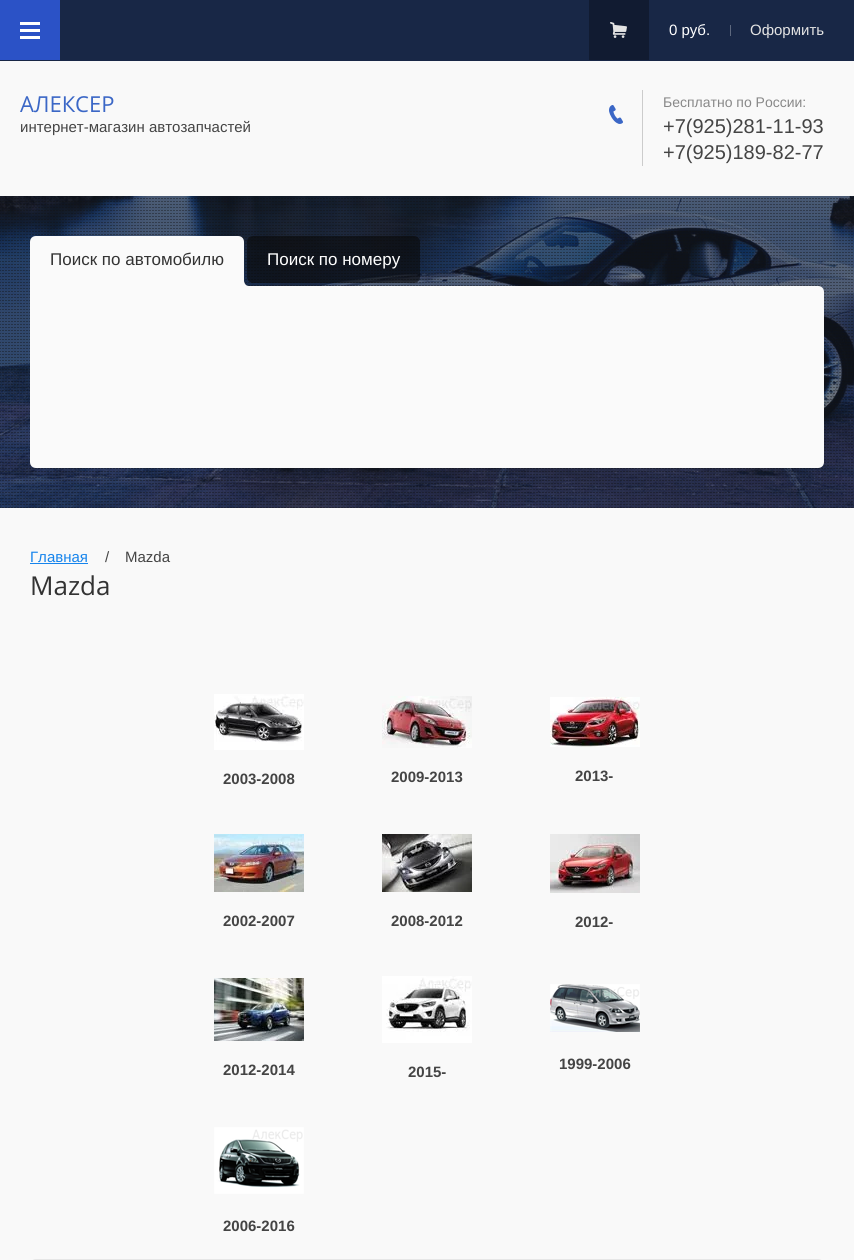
#include <cairo.h>
#include <math.h>
#include <stddef.h>


static void round_rect(cairo_t *cr, double x, double y, double w, double h, double r) {
    cairo_new_sub_path(cr);
    cairo_arc(cr, x + w - r, y + h - r, r, 0, M_PI / 2);
    cairo_arc(cr, x + r, y + h - r, r, M_PI / 2, M_PI);
    cairo_arc(cr, x + r, y + r, r, M_PI, 1.5 * M_PI);
    cairo_arc(cr, x + w - r, y + r, r, 1.5 * M_PI, 2 * M_PI);
    cairo_close_path(cr);
}

static void picture(cairo_t *cr, const char *path, double x, double y, double w, double h) {
    cairo_surface_t *image = cairo_image_surface_create_from_png(path);
    cairo_save(cr);
    cairo_set_source_surface(cr, image, x, y);
    cairo_rectangle(cr, x, y, w, h);
    cairo_fill(cr);
    cairo_restore(cr);
    cairo_surface_destroy(image);
}

int main(void) {
    cairo_surface_t *surface = cairo_image_surface_create(CAIRO_FORMAT_RGB24, 854, 1260);
    cairo_t *cr = cairo_create(surface);
    cairo_font_options_t *options = cairo_font_options_create();
    cairo_font_options_set_hint_metrics(options, CAIRO_HINT_METRICS_OFF);
    cairo_font_options_set_hint_style(options, CAIRO_HINT_STYLE_NONE);
    cairo_set_font_options(cr, options);
    cairo_set_miter_limit(cr, 4);
    cairo_set_source_rgb(cr, 0.973, 0.973, 0.973);
    cairo_paint(cr);
    cairo_set_source_rgb(cr, 0.094, 0.153, 0.275);
    cairo_rectangle(cr, 0, 0, 854, 61);
    cairo_fill(cr);
    cairo_set_source_rgb(cr, 0.169, 0.322, 0.776);
    cairo_rectangle(cr, 0, 0, 60, 60);
    cairo_fill(cr);
    picture(cr, "img1.png", 20, 22, 20, 17);
    cairo_set_source_rgb(cr, 0.067, 0.106, 0.192);
    cairo_rectangle(cr, 589, 0, 60, 60);
    cairo_fill(cr);
    picture(cr, "img2.png", 610, 22, 17, 16);
    cairo_select_font_face(cr, "Liberation Sans", CAIRO_FONT_SLANT_NORMAL, CAIRO_FONT_WEIGHT_NORMAL);
    cairo_set_font_size(cr, 15);
    cairo_set_source_rgb(cr, 1, 1, 1);
    cairo_move_to(cr, 669, 35);
    cairo_show_text(cr, "0 руб.");
    cairo_set_source_rgb(cr, 0.365, 0.408, 0.494);
    cairo_rectangle(cr, 730, 25, 1, 11);
    cairo_fill(cr);
    cairo_set_source_rgb(cr, 0.89, 0.89, 0.89);
    cairo_move_to(cr, 750, 35);
    cairo_show_text(cr, "Оформить");
    cairo_select_font_face(cr, "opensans", CAIRO_FONT_SLANT_NORMAL, CAIRO_FONT_WEIGHT_NORMAL);
    cairo_set_font_size(cr, 22);
    cairo_set_source_rgb(cr, 0.231, 0.404, 0.776);
    cairo_move_to(cr, 20, 112);
    cairo_show_text(cr, "АЛЕКСЕР");
    cairo_select_font_face(cr, "Liberation Sans", CAIRO_FONT_SLANT_NORMAL, CAIRO_FONT_WEIGHT_NORMAL);
    cairo_set_font_size(cr, 15);
    cairo_set_source_rgb(cr, 0.267, 0.267, 0.267);
    cairo_move_to(cr, 20, 132);
    cairo_show_text(cr, "интернет-магазин автозапчастей");
    cairo_set_source_rgb(cr, 0.8, 0.8, 0.8);
    cairo_rectangle(cr, 642, 90, 1, 76);
    cairo_fill(cr);
    cairo_set_font_size(cr, 14);
    cairo_set_source_rgb(cr, 0.533, 0.533, 0.533);
    cairo_move_to(cr, 663, 107);
    cairo_show_text(cr, "Бесплатно по России:");
    picture(cr, "img3.png", 609, 105, 14, 19);
    cairo_set_font_size(cr, 20);
    cairo_set_source_rgb(cr, 0.267, 0.267, 0.267);
    cairo_move_to(cr, 663, 133);
    cairo_show_text(cr, "+7(925)281-11-93");
    cairo_move_to(cr, 663, 159);
    cairo_show_text(cr, "+7(925)189-82-77");
    picture(cr, "img4.png", 0, 196, 854, 312);
    picture(cr, "img5.png", 0, 198, 853, 310);
    cairo_set_source_rgb(cr, 0.98, 0.98, 0.98);
    cairo_new_path(cr);
    cairo_move_to(cr, 36, 236);
    cairo_line_to(cr, 238, 236);
    cairo_curve_to(cr, 241.5, 236, 244, 238.5, 244, 242);
    cairo_line_to(cr, 244, 283);
    cairo_line_to(cr, 30, 283);
    cairo_line_to(cr, 30, 242);
    cairo_curve_to(cr, 30, 238.5, 32.5, 236, 36, 236);
    cairo_close_path(cr);
    cairo_fill(cr);
    cairo_set_font_size(cr, 17);
    cairo_set_source_rgb(cr, 0.2, 0.2, 0.2);
    cairo_move_to(cr, 50, 265);
    cairo_show_text(cr, "Поиск по автомобилю");
    cairo_set_source_rgb(cr, 0.98, 0.98, 0.98);
    cairo_rectangle(cr, 30, 283, 214, 3);
    cairo_fill(cr);
    picture(cr, "img6.png", 244, 281, 5, 5);
    cairo_set_source_rgba(cr, 0.035, 0.035, 0.035, 0.6);
    round_rect(cr, 247, 236, 173, 47, 6);
    cairo_fill(cr);
    cairo_set_source_rgb(cr, 1, 1, 1);
    cairo_move_to(cr, 267, 265);
    cairo_show_text(cr, "Поиск по номеру");
    cairo_set_source_rgb(cr, 0.98, 0.98, 0.98);
    cairo_new_path(cr);
    cairo_move_to(cr, 30, 286);
    cairo_line_to(cr, 818, 286);
    cairo_curve_to(cr, 821.5, 286, 824, 288.5, 824, 292);
    cairo_line_to(cr, 824, 462);
    cairo_curve_to(cr, 824, 465.5, 821.5, 468, 818, 468);
    cairo_line_to(cr, 36, 468);
    cairo_curve_to(cr, 32.5, 468, 30, 465.5, 30, 462);
    cairo_close_path(cr);
    cairo_fill(cr);
    cairo_set_font_size(cr, 15);
    cairo_set_source_rgb(cr, 0.086, 0.518, 0.922);
    cairo_move_to(cr, 30, 562);
    cairo_show_text(cr, "Главная");
    cairo_rectangle(cr, 30, 563, 58, 1);
    cairo_fill(cr);
    cairo_set_source_rgb(cr, 0.267, 0.267, 0.267);
    cairo_move_to(cr, 105, 562);
    cairo_show_text(cr, "/");
    cairo_move_to(cr, 125, 562);
    cairo_show_text(cr, "Mazda");
    cairo_select_font_face(cr, "opensans", CAIRO_FONT_SLANT_NORMAL, CAIRO_FONT_WEIGHT_NORMAL);
    cairo_set_font_size(cr, 26);
    cairo_set_source_rgb(cr, 0.2, 0.2, 0.2);
    cairo_move_to(cr, 30, 595);
    cairo_show_text(cr, "Mazda");
    picture(cr, "img7.png", 214, 694, 90, 56);
    cairo_select_font_face(cr, "Liberation Sans", CAIRO_FONT_SLANT_NORMAL, CAIRO_FONT_WEIGHT_BOLD);
    cairo_set_font_size(cr, 15);
    cairo_set_source_rgb(cr, 0.267, 0.267, 0.267);
    cairo_move_to(cr, 223, 784);
    cairo_show_text(cr, "2003-2008");
    picture(cr, "img8.png", 382, 696, 90, 52);
    cairo_move_to(cr, 391, 782);
    cairo_show_text(cr, "2009-2013");
    picture(cr, "img9.png", 550, 697, 90, 50);
    cairo_move_to(cr, 575, 781);
    cairo_show_text(cr, "2013-");
    picture(cr, "img10.png", 214, 834, 90, 58);
    cairo_move_to(cr, 223, 926);
    cairo_show_text(cr, "2002-2007");
    picture(cr, "img11.png", 382, 834, 90, 58);
    cairo_move_to(cr, 391, 926);
    cairo_show_text(cr, "2008-2012");
    picture(cr, "img12.png", 550, 834, 90, 59);
    cairo_move_to(cr, 575, 927);
    cairo_show_text(cr, "2012-");
    picture(cr, "img13.png", 214, 978, 90, 63);
    cairo_move_to(cr, 223, 1075);
    cairo_show_text(cr, "2012-2014");
    picture(cr, "img14.png", 382, 976, 90, 67);
    cairo_move_to(cr, 408, 1077);
    cairo_show_text(cr, "2015-");
    picture(cr, "img15.png", 550, 984, 90, 48);
    cairo_move_to(cr, 559, 1069);
    cairo_show_text(cr, "1999-2006");
    picture(cr, "img16.png", 214, 1127, 90, 67);
    cairo_move_to(cr, 223, 1231);
    cairo_show_text(cr, "2006-2016");
    cairo_set_source_rgb(cr, 0.902, 0.902, 0.902);
    round_rect(cr, 30, 1259, 794, 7, 6);
    cairo_fill(cr);
    cairo_surface_write_to_png(surface, "page.png");
    cairo_font_options_destroy(options);
    cairo_destroy(cr);
    cairo_surface_destroy(surface);
    return 0;
}
